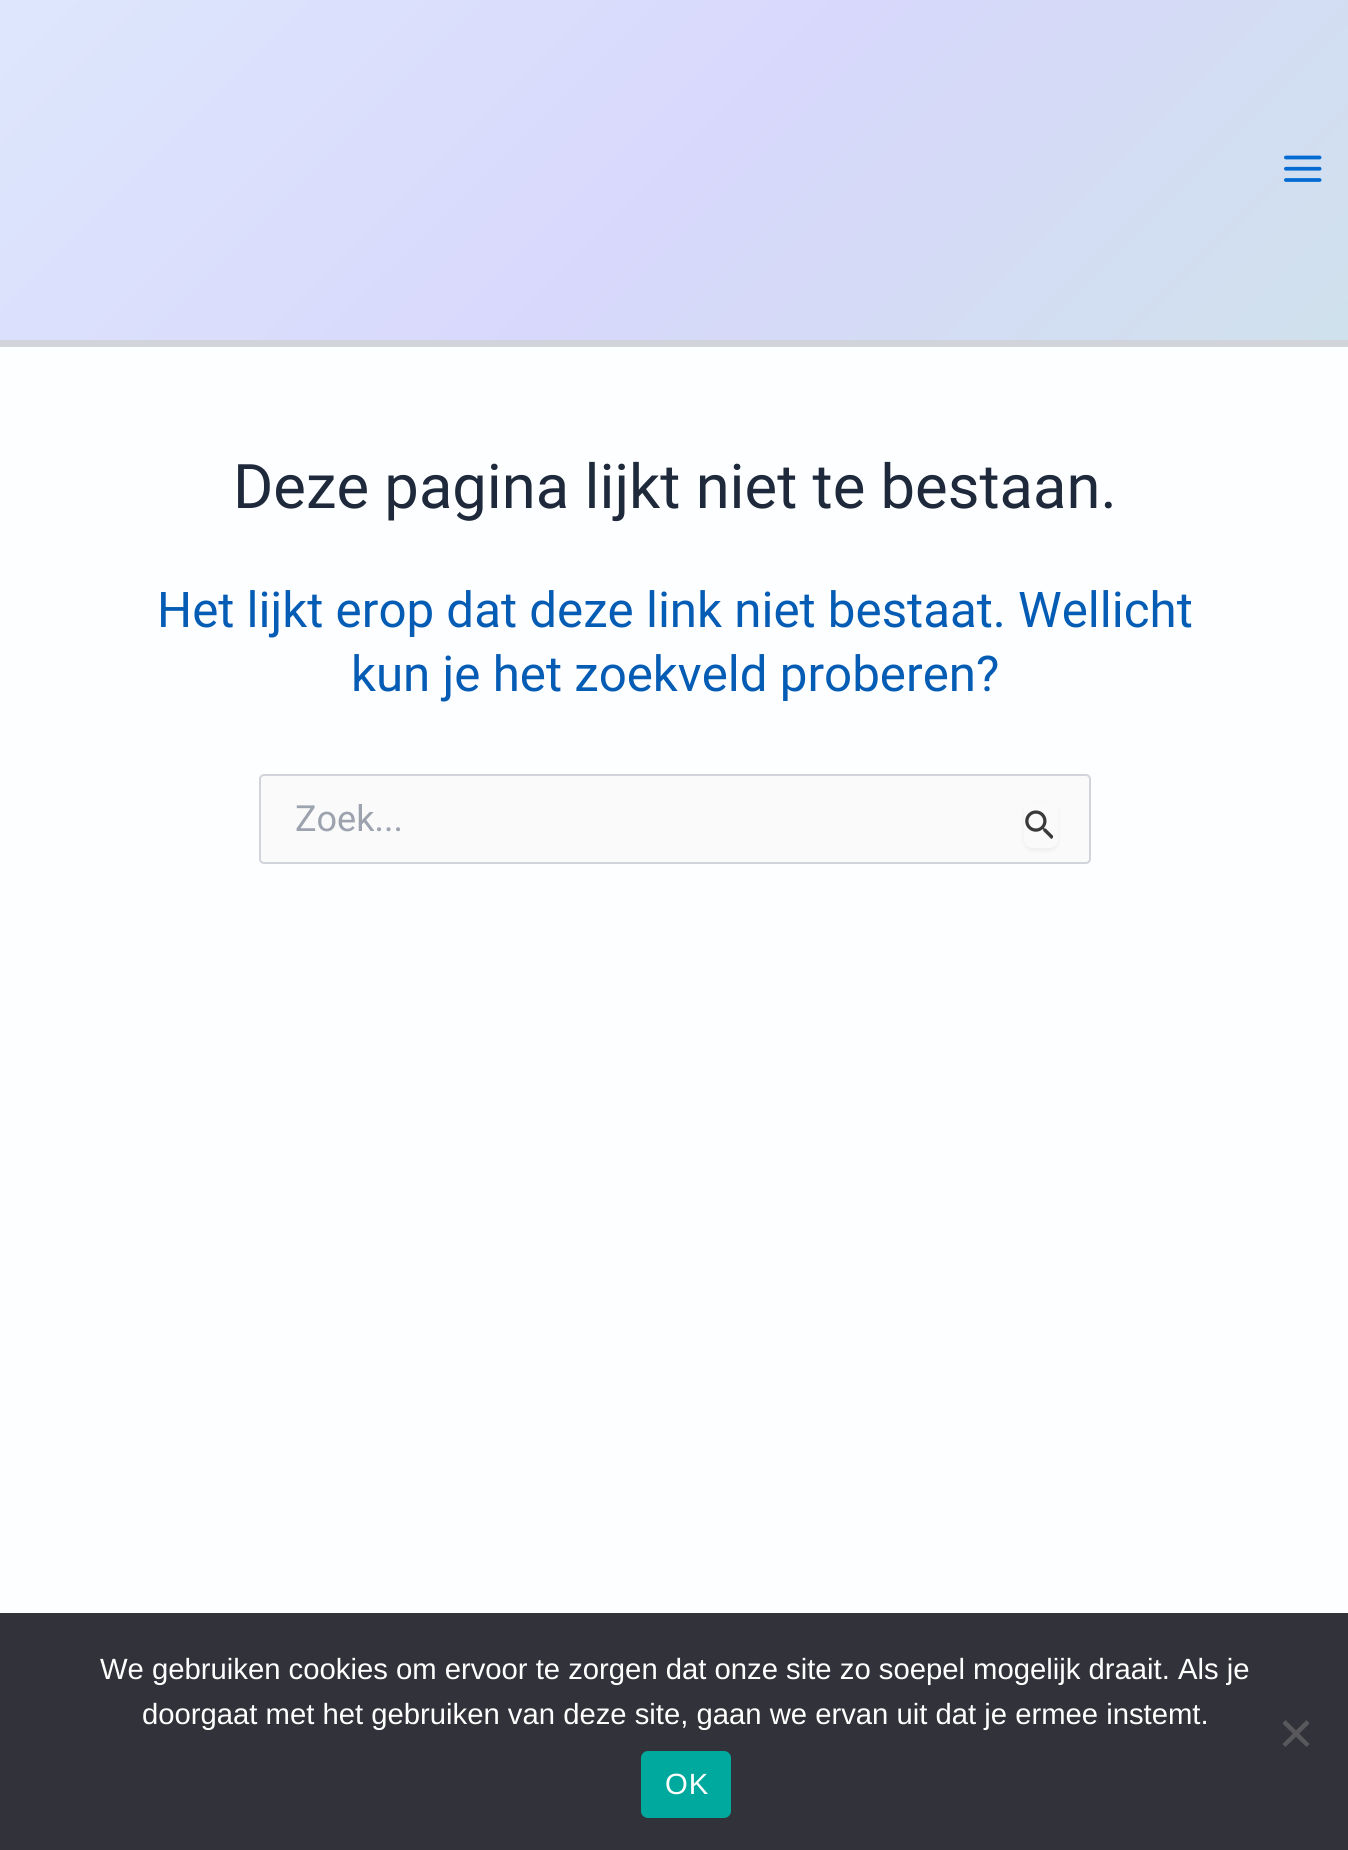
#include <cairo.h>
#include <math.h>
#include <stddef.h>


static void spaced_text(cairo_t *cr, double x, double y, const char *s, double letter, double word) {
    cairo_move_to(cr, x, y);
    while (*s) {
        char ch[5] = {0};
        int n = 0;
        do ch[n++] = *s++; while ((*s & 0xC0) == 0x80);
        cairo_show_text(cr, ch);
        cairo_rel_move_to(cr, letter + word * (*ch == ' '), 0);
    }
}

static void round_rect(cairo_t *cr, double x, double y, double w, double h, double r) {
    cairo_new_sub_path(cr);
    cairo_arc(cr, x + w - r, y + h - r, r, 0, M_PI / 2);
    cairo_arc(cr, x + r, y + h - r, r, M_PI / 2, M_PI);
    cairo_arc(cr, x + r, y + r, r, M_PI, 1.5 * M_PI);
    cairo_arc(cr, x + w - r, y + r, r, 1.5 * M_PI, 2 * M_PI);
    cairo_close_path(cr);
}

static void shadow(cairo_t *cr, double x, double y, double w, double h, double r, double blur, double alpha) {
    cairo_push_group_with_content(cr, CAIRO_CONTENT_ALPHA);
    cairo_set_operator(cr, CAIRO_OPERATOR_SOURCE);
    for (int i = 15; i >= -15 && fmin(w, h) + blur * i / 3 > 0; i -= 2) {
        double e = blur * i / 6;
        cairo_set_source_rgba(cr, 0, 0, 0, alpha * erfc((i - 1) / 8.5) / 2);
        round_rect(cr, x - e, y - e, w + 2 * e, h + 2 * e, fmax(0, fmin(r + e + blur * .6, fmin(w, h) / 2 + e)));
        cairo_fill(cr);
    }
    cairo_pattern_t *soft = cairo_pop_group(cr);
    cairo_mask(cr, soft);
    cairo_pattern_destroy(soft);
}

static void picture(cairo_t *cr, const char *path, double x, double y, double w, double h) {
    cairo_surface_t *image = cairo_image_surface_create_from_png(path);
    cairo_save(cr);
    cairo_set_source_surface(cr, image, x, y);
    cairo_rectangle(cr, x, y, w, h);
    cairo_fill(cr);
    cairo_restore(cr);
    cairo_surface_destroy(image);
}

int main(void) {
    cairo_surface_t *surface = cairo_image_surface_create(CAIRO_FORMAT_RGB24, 1348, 1850);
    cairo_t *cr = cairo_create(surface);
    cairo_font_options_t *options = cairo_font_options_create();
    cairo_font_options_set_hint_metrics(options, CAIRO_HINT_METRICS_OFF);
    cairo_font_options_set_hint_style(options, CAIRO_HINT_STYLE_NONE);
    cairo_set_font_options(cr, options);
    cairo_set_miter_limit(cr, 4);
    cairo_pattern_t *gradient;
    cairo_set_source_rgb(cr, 0.992, 0.996, 1);
    cairo_paint(cr);
    gradient = cairo_pattern_create_linear(253, -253, 1097, 592);
    cairo_pattern_add_color_stop_rgba(gradient, 0.03, 0.867, 0.902, 0.988, 1);
    cairo_pattern_add_color_stop_rgba(gradient, 0.51, 0.847, 0.847, 0.988, 1);
    cairo_pattern_add_color_stop_rgba(gradient, 1, 0.812, 0.882, 0.925, 1);
    cairo_set_source(cr, gradient);
    cairo_pattern_destroy(gradient);
    cairo_rectangle(cr, 0, 0, 1348, 340);
    cairo_fill(cr);
    cairo_set_source_rgb(cr, 0.82, 0.835, 0.859);
    cairo_rectangle(cr, 0, 340, 1348, 7);
    cairo_fill(cr);
    picture(cr, "img1.png", 1284, 155, 38, 27);
    cairo_select_font_face(cr, "Roboto", CAIRO_FONT_SLANT_NORMAL, CAIRO_FONT_WEIGHT_NORMAL);
    cairo_set_font_size(cr, 61.5);
    cairo_set_source_rgb(cr, 0.118, 0.161, 0.231);
    cairo_move_to(cr, 233, 508);
    cairo_show_text(cr, "Deze pagina lijkt niet te bestaan.");
    cairo_set_font_size(cr, 49.25);
    cairo_set_source_rgb(cr, 0.016, 0.361, 0.706);
    cairo_move_to(cr, 157, 627);
    cairo_show_text(cr, "Het lijkt erop dat deze link niet bestaat. Wellicht");
    cairo_move_to(cr, 351, 691);
    cairo_show_text(cr, "kun je het zoekveld proberen?");
    cairo_set_source_rgb(cr, 0.98, 0.98, 0.98);
    round_rect(cr, 260, 775, 830, 88, 4);
    cairo_fill_preserve(cr);
    cairo_set_source_rgb(cr, 0.82, 0.835, 0.859);
    cairo_stroke(cr);
    cairo_set_font_size(cr, 36);
    cairo_set_source_rgb(cr, 0.612, 0.639, 0.686);
    cairo_move_to(cr, 295, 831);
    cairo_show_text(cr, "Zoek...");
    cairo_save(cr);
    cairo_set_fill_rule(cr, CAIRO_FILL_RULE_EVEN_ODD);
    cairo_new_path(cr);
    cairo_move_to(cr, 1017, 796);
    cairo_line_to(cr, 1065, 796);
    cairo_line_to(cr, 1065, 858);
    cairo_line_to(cr, 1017, 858);
    cairo_close_path(cr);
    cairo_move_to(cr, 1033, 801);
    cairo_line_to(cr, 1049, 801);
    cairo_curve_to(cr, 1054, 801, 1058, 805, 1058, 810);
    cairo_line_to(cr, 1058, 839);
    cairo_curve_to(cr, 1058, 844, 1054, 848, 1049, 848);
    cairo_line_to(cr, 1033, 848);
    cairo_curve_to(cr, 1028, 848, 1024, 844, 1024, 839);
    cairo_line_to(cr, 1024, 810);
    cairo_curve_to(cr, 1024, 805, 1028, 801, 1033, 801);
    cairo_close_path(cr);
    cairo_clip(cr);
    cairo_set_source_rgb(cr, 0, 0, 0);
    shadow(cr, 1024, 803, 34, 48, 9, 2, 0.05);
    cairo_restore(cr);
    picture(cr, "img2.png", 1025, 810, 28, 29);
    cairo_set_source_rgb(cr, 0.196, 0.196, 0.227);
    cairo_rectangle(cr, 0, 1613, 1348, 237);
    cairo_fill(cr);
    cairo_select_font_face(cr, "Liberation Sans", CAIRO_FONT_SLANT_NORMAL, CAIRO_FONT_WEIGHT_NORMAL);
    cairo_set_font_size(cr, 29.25);
    cairo_set_source_rgb(cr, 1, 1, 1);
    cairo_move_to(cr, 100, 1679);
    cairo_show_text(cr, "We gebruiken cookies om ervoor te zorgen dat onze site zo soepel mogelijk draait. Als je");
    cairo_move_to(cr, 142, 1724);
    cairo_show_text(cr, "doorgaat met het gebruiken van deze site, gaan we ervan uit dat je ermee instemt.");
    cairo_set_source_rgb(cr, 0.349, 0.349, 0.365);
    cairo_new_path(cr);
    cairo_move_to(cr, 1306.5, 1720);
    cairo_line_to(cr, 1309.5, 1723.5);
    cairo_line_to(cr, 1285.5, 1747);
    cairo_line_to(cr, 1282.5, 1744);
    cairo_close_path(cr);
    cairo_fill(cr);
    cairo_new_path(cr);
    cairo_move_to(cr, 1282.5, 1723.5);
    cairo_line_to(cr, 1285.5, 1720);
    cairo_line_to(cr, 1309.5, 1744);
    cairo_line_to(cr, 1306.5, 1747);
    cairo_close_path(cr);
    cairo_fill(cr);
    cairo_set_source_rgb(cr, 0, 0.663, 0.616);
    round_rect(cr, 641, 1751, 90, 67, 7);
    cairo_fill(cr);
    cairo_set_source_rgb(cr, 1, 1, 1);
    spaced_text(cr, 665, 1794, "OK", 1, 0);
    cairo_surface_write_to_png(surface, "page.png");
    cairo_font_options_destroy(options);
    cairo_destroy(cr);
    cairo_surface_destroy(surface);
    return 0;
}
